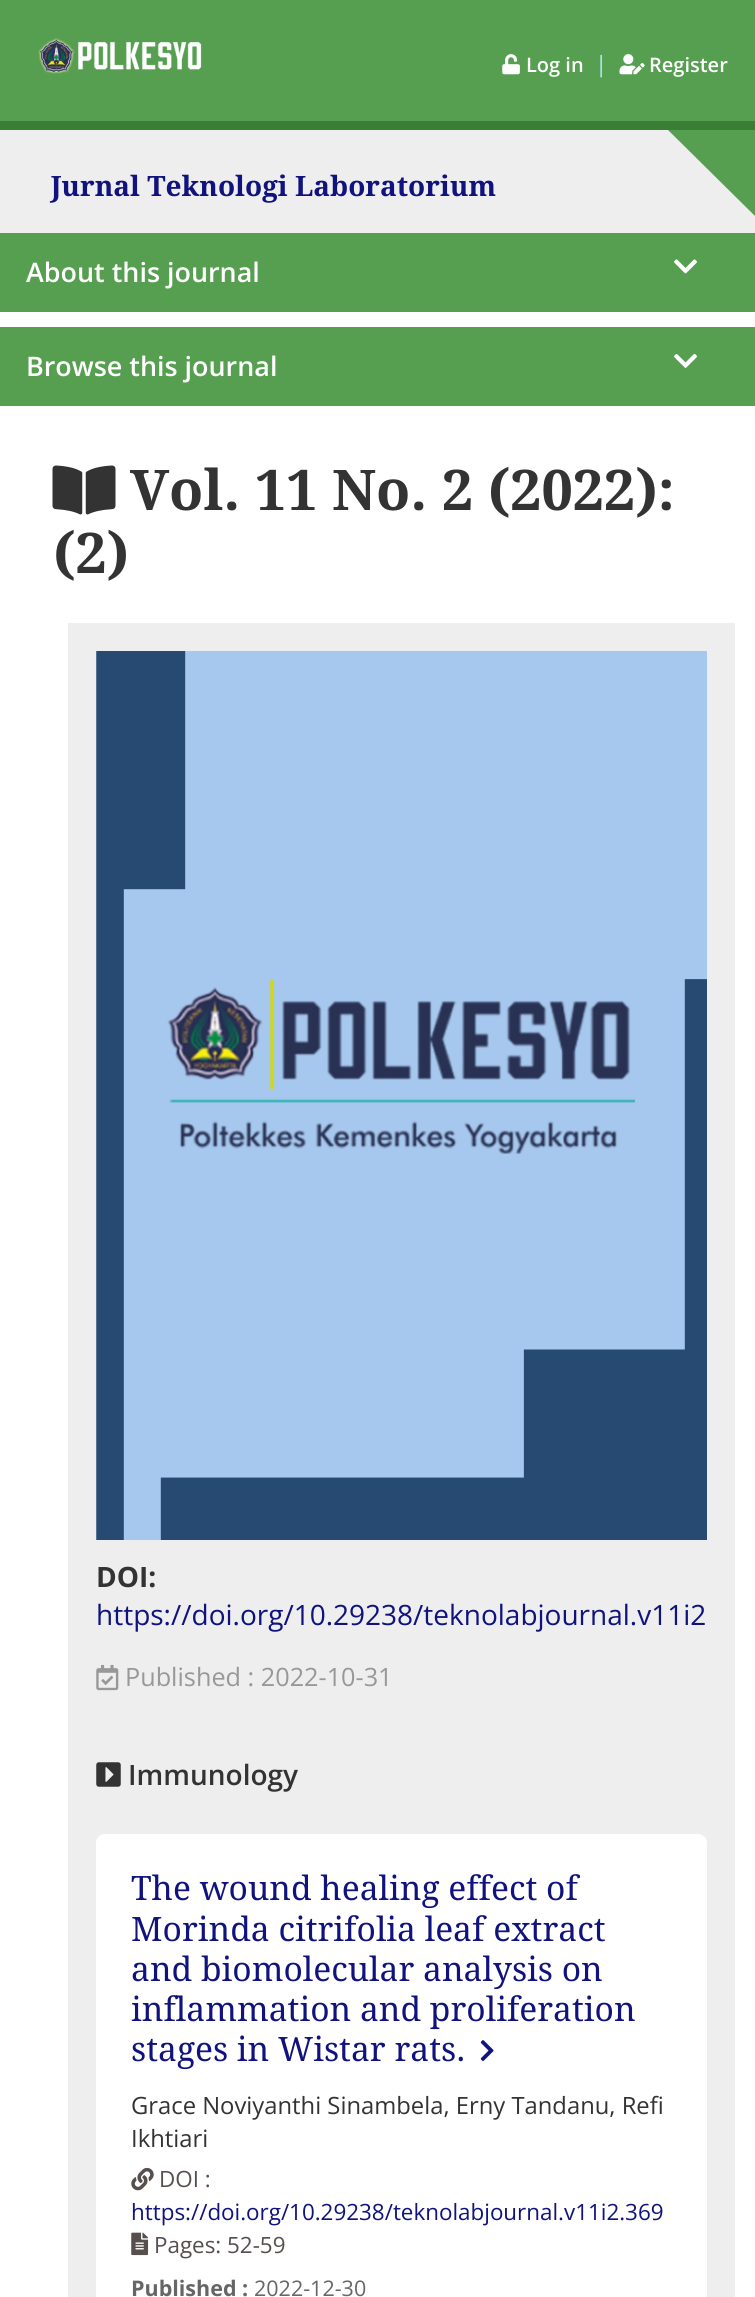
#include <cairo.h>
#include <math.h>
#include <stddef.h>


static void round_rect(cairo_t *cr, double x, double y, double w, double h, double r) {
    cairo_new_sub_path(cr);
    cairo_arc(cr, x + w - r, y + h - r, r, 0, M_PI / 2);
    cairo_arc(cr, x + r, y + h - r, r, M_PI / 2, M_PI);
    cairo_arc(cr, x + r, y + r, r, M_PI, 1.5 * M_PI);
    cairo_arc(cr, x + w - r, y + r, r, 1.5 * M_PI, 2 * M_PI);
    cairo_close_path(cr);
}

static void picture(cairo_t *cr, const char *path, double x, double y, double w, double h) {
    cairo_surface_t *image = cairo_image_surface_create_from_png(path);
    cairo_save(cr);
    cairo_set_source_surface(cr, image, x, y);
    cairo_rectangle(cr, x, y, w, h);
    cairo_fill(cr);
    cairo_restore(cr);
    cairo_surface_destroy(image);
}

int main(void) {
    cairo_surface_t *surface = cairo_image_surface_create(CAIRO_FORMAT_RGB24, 755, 2297);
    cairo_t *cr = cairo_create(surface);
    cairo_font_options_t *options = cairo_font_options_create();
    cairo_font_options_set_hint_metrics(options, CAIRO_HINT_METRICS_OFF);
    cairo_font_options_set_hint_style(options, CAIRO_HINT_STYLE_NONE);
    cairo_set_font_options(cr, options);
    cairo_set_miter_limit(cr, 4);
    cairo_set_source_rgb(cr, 1, 1, 1);
    cairo_paint(cr);
    cairo_set_source_rgb(cr, 0.337, 0.624, 0.314);
    cairo_rectangle(cr, 0, 0, 755, 121);
    cairo_fill(cr);
    cairo_set_source_rgb(cr, 0.227, 0.49, 0.208);
    cairo_rectangle(cr, 0, 121, 755, 9);
    cairo_fill(cr);
    picture(cr, "img1.png", 38, 38, 164, 36);
    picture(cr, "img2.png", 502, 54, 18, 21);
    cairo_select_font_face(cr, "Open Sans SemiBold", CAIRO_FONT_SLANT_NORMAL, CAIRO_FONT_WEIGHT_NORMAL);
    cairo_set_font_size(cr, 20);
    cairo_set_source_rgb(cr, 1, 1, 1);
    cairo_move_to(cr, 526, 72);
    cairo_show_text(cr, "Log in");
    cairo_select_font_face(cr, "Open Sans", CAIRO_FONT_SLANT_NORMAL, CAIRO_FONT_WEIGHT_NORMAL);
    cairo_set_font_size(cr, 22.4);
    cairo_set_source_rgb(cr, 0.702, 0.898, 1);
    cairo_move_to(cr, 595, 72);
    cairo_show_text(cr, "|");
    picture(cr, "img3.png", 619, 54, 26, 21);
    cairo_select_font_face(cr, "Open Sans SemiBold", CAIRO_FONT_SLANT_NORMAL, CAIRO_FONT_WEIGHT_NORMAL);
    cairo_set_font_size(cr, 20);
    cairo_set_source_rgb(cr, 1, 1, 1);
    cairo_move_to(cr, 649, 72);
    cairo_show_text(cr, "Register");
    cairo_set_source_rgb(cr, 0.933, 0.933, 0.933);
    cairo_rectangle(cr, 0, 130, 755, 103);
    cairo_fill(cr);
    cairo_select_font_face(cr, "Droid Serif", CAIRO_FONT_SLANT_NORMAL, CAIRO_FONT_WEIGHT_BOLD);
    cairo_set_font_size(cr, 28);
    cairo_set_source_rgb(cr, 0.063, 0.078, 0.494);
    cairo_move_to(cr, 51, 196);
    cairo_show_text(cr, "Jurnal Teknologi Laboratorium");
    cairo_set_source_rgb(cr, 0.337, 0.624, 0.314);
    cairo_rectangle(cr, 0, 233, 755, 79);
    cairo_fill(cr);
    cairo_select_font_face(cr, "Open Sans SemiBold", CAIRO_FONT_SLANT_NORMAL, CAIRO_FONT_WEIGHT_NORMAL);
    cairo_set_font_size(cr, 26.9);
    cairo_set_source_rgb(cr, 1, 1, 1);
    cairo_move_to(cr, 26, 282);
    cairo_show_text(cr, "About this journal");
    picture(cr, "img4.png", 674, 259, 23, 15);
    cairo_set_source_rgb(cr, 0.337, 0.624, 0.314);
    cairo_rectangle(cr, 0, 327, 755, 79);
    cairo_fill(cr);
    cairo_set_source_rgb(cr, 1, 1, 1);
    cairo_move_to(cr, 26, 376);
    cairo_show_text(cr, "Browse this journal");
    picture(cr, "img5.png", 674, 354, 23, 14);
    picture(cr, "img6.png", 52, 465, 64, 50);
    cairo_select_font_face(cr, "Droid Serif", CAIRO_FONT_SLANT_NORMAL, CAIRO_FONT_WEIGHT_BOLD);
    cairo_set_font_size(cr, 56);
    cairo_set_source_rgb(cr, 0.2, 0.2, 0.2);
    cairo_move_to(cr, 130, 510);
    cairo_show_text(cr, "Vol. 11 No. 2 (2022):");
    cairo_move_to(cr, 53, 573);
    cairo_show_text(cr, "(2)");
    cairo_set_source_rgb(cr, 0.933, 0.933, 0.933);
    cairo_rectangle(cr, 68, 623, 667, 1674);
    cairo_fill(cr);
    picture(cr, "img7.png", 96, 651, 611, 889);
    cairo_select_font_face(cr, "Open Sans", CAIRO_FONT_SLANT_NORMAL, CAIRO_FONT_WEIGHT_BOLD);
    cairo_set_font_size(cr, 28);
    cairo_set_source_rgb(cr, 0.2, 0.2, 0.2);
    cairo_move_to(cr, 96, 1587);
    cairo_show_text(cr, "DOI:");
    cairo_select_font_face(cr, "Open Sans", CAIRO_FONT_SLANT_NORMAL, CAIRO_FONT_WEIGHT_NORMAL);
    cairo_set_source_rgb(cr, 0.063, 0.078, 0.494);
    cairo_move_to(cr, 96, 1625);
    cairo_show_text(cr, "https://doi.org/10.29238/teknolabjournal.v11i2");
    picture(cr, "img8.png", 96, 1664, 23, 27);
    cairo_set_font_size(cr, 25.25);
    cairo_set_source_rgb(cr, 0.6, 0.596, 0.596);
    cairo_move_to(cr, 125, 1686);
    cairo_show_text(cr, "Published : 2022-10-31");
    picture(cr, "img9.png", 96, 1762, 25, 25);
    cairo_select_font_face(cr, "Open Sans SemiBold", CAIRO_FONT_SLANT_NORMAL, CAIRO_FONT_WEIGHT_NORMAL);
    cairo_set_font_size(cr, 28);
    cairo_set_source_rgb(cr, 0.2, 0.2, 0.2);
    cairo_move_to(cr, 128, 1785);
    cairo_show_text(cr, "Immunology");
    cairo_set_source_rgb(cr, 1, 1, 1);
    round_rect(cr, 96, 1834, 611, 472, 9);
    cairo_fill(cr);
    cairo_select_font_face(cr, "Droid Serif", CAIRO_FONT_SLANT_NORMAL, CAIRO_FONT_WEIGHT_NORMAL);
    cairo_set_font_size(cr, 33.6);
    cairo_set_source_rgb(cr, 0.063, 0.078, 0.494);
    cairo_move_to(cr, 131, 1900);
    cairo_show_text(cr, "The wound healing effect of");
    cairo_move_to(cr, 131, 1941);
    cairo_show_text(cr, "Morinda citrifolia leaf extract");
    cairo_move_to(cr, 131, 1981);
    cairo_show_text(cr, "and biomolecular analysis on");
    cairo_move_to(cr, 131, 2021);
    cairo_show_text(cr, "inflammation and proliferation");
    cairo_move_to(cr, 131, 2061);
    cairo_show_text(cr, "stages in Wistar rats.");
    picture(cr, "img10.png", 480, 2040, 14, 21);
    cairo_select_font_face(cr, "Open Sans", CAIRO_FONT_SLANT_NORMAL, CAIRO_FONT_WEIGHT_NORMAL);
    cairo_set_font_size(cr, 23.8);
    cairo_set_source_rgb(cr, 0.2, 0.2, 0.2);
    cairo_move_to(cr, 131, 2114);
    cairo_show_text(cr, "Grace Noviyanthi Sinambela, Erny Tandanu, Refi");
    cairo_move_to(cr, 131, 2147);
    cairo_show_text(cr, "Ikhtiari");
    picture(cr, "img11.png", 131, 2167, 23, 24);
    cairo_set_font_size(cr, 22.4);
    cairo_set_source_rgb(cr, 0.341, 0.306, 0.306);
    cairo_move_to(cr, 159, 2187);
    cairo_show_text(cr, "DOI :");
    cairo_set_source_rgb(cr, 0.063, 0.078, 0.494);
    cairo_move_to(cr, 131, 2220);
    cairo_show_text(cr, "https://doi.org/10.29238/teknolabjournal.v11i2.369");
    picture(cr, "img12.png", 131, 2232, 18, 24);
    cairo_set_source_rgb(cr, 0.341, 0.306, 0.306);
    cairo_move_to(cr, 154, 2253);
    cairo_show_text(cr, "Pages: 52-59");
    cairo_select_font_face(cr, "Open Sans", CAIRO_FONT_SLANT_NORMAL, CAIRO_FONT_WEIGHT_BOLD);
    cairo_set_font_size(cr, 21.5);
    cairo_set_source_rgb(cr, 0.4, 0.4, 0.4);
    cairo_move_to(cr, 131, 2296);
    cairo_show_text(cr, "Published :");
    cairo_select_font_face(cr, "Open Sans", CAIRO_FONT_SLANT_NORMAL, CAIRO_FONT_WEIGHT_NORMAL);
    cairo_move_to(cr, 254, 2296);
    cairo_show_text(cr, "2022-12-30");
    cairo_set_source_rgb(cr, 0.337, 0.624, 0.314);
    cairo_new_path(cr);
    cairo_move_to(cr, 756, 130);
    cairo_line_to(cr, 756, 217);
    cairo_line_to(cr, 668, 130);
    cairo_close_path(cr);
    cairo_fill(cr);
    cairo_surface_write_to_png(surface, "page.png");
    cairo_font_options_destroy(options);
    cairo_destroy(cr);
    cairo_surface_destroy(surface);
    return 0;
}
